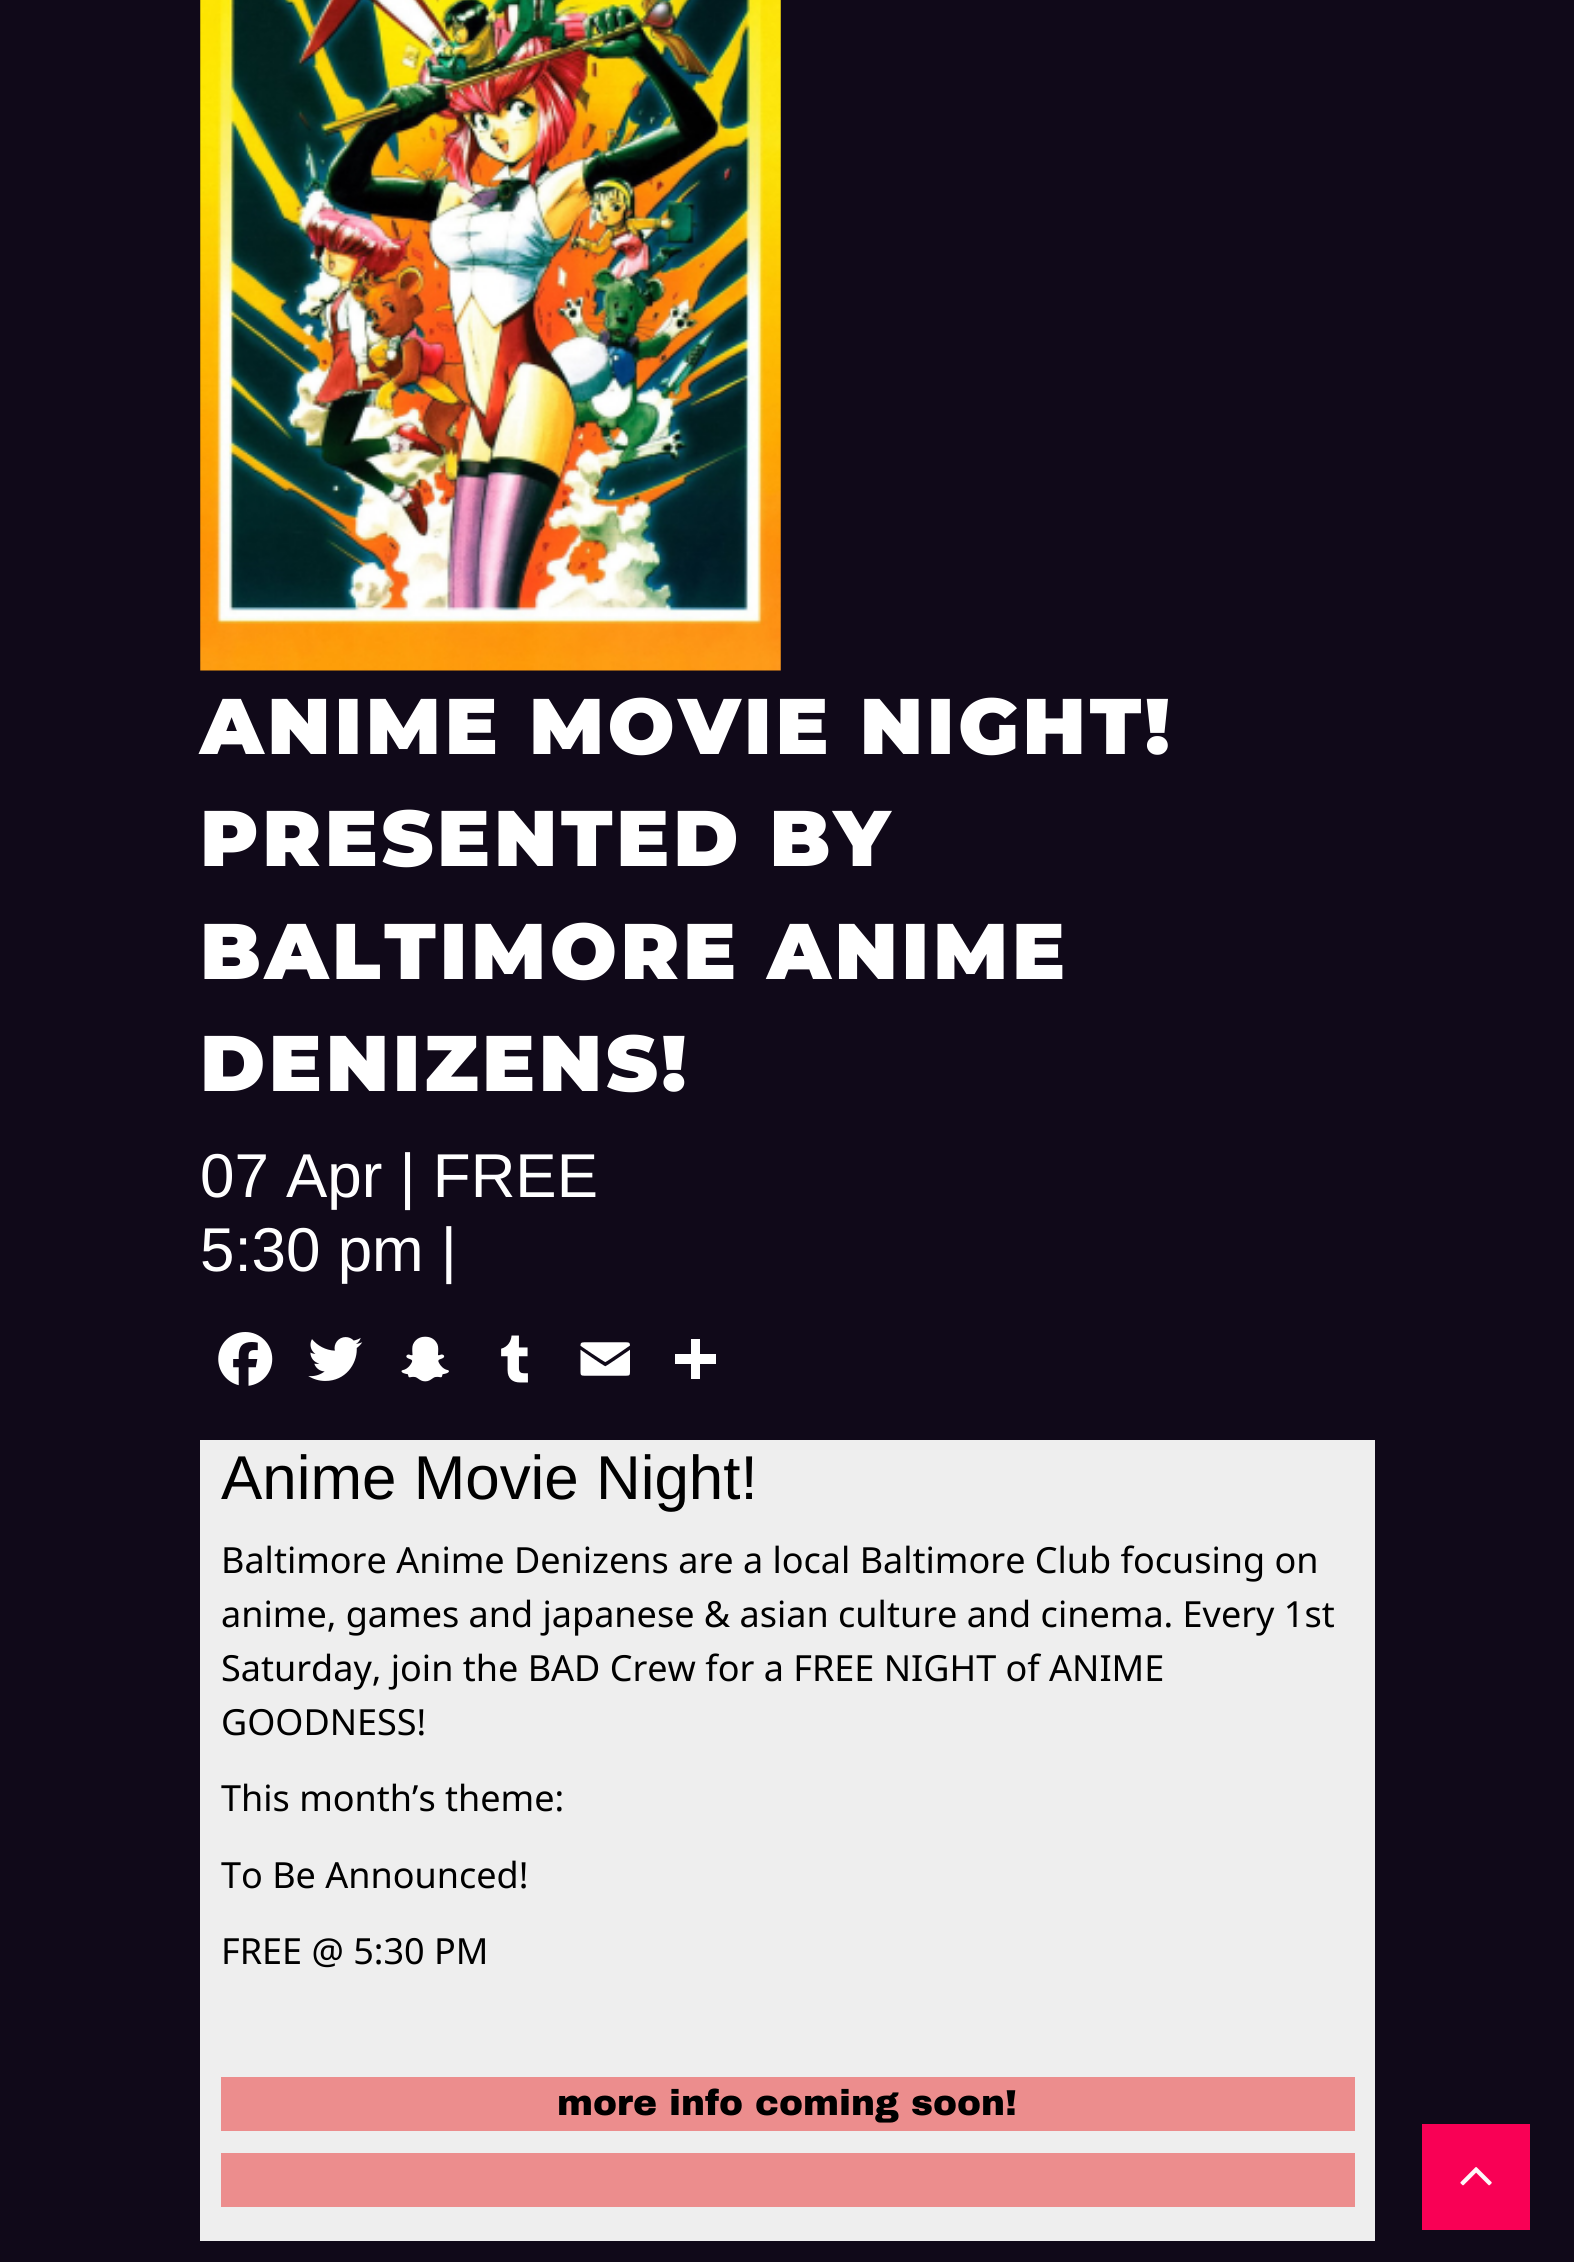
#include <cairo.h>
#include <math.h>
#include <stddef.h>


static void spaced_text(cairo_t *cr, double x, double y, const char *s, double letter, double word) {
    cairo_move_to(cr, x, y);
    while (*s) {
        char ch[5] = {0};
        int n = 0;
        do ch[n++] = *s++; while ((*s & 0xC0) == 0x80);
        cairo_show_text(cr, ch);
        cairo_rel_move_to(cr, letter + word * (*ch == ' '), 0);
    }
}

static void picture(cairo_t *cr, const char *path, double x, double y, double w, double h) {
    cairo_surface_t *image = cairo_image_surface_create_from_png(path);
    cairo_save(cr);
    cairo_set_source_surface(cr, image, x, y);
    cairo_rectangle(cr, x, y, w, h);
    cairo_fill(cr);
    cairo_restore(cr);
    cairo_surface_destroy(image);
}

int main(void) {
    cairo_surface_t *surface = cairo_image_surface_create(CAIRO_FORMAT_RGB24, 1574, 2262);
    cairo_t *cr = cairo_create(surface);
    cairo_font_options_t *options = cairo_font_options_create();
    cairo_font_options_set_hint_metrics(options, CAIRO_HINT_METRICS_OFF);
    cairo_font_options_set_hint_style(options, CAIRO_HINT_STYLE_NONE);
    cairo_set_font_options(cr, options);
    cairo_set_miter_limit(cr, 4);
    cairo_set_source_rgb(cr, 0.063, 0.039, 0.098);
    cairo_paint(cr);
    picture(cr, "img1.png", 200, 0, 581, 671);
    cairo_select_font_face(cr, "Montserrat Black", CAIRO_FONT_SLANT_NORMAL, CAIRO_FONT_WEIGHT_NORMAL);
    cairo_set_font_size(cr, 78.75);
    cairo_set_source_rgb(cr, 1, 1, 1);
    spaced_text(cr, 200, 754, "ANIME MOVIE NIGHT!", 3.8, 0);
    spaced_text(cr, 200, 866, "PRESENTED BY", 3.8, 0);
    spaced_text(cr, 200, 979, "BALTIMORE ANIME", 3.8, 0);
    spaced_text(cr, 200, 1091, "DENIZENS!", 3.8, 0);
    cairo_select_font_face(cr, "Liberation Sans", CAIRO_FONT_SLANT_NORMAL, CAIRO_FONT_WEIGHT_NORMAL);
    cairo_set_font_size(cr, 61.9);
    cairo_move_to(cr, 200, 1197);
    cairo_show_text(cr, "07 Apr | FREE");
    cairo_move_to(cr, 200, 1271);
    cairo_show_text(cr, "5:30 pm |");
    picture(cr, "img2.png", 218, 1332, 55, 54);
    picture(cr, "img3.png", 308, 1337, 55, 44);
    picture(cr, "img4.png", 401, 1336, 48, 46);
    picture(cr, "img5.png", 501, 1335, 27, 48);
    picture(cr, "img6.png", 580, 1342, 50, 34);
    cairo_rectangle(cr, 691, 1339, 9, 40);
    cairo_fill(cr);
    cairo_rectangle(cr, 675, 1354, 41, 10);
    cairo_fill(cr);
    cairo_set_source_rgb(cr, 0.933, 0.933, 0.933);
    cairo_rectangle(cr, 200, 1440, 1175, 801);
    cairo_fill(cr);
    cairo_set_source_rgb(cr, 0, 0, 0);
    cairo_move_to(cr, 221, 1499);
    cairo_show_text(cr, "Anime Movie Night!");
    cairo_select_font_face(cr, "Noto Sans", CAIRO_FONT_SLANT_NORMAL, CAIRO_FONT_WEIGHT_NORMAL);
    cairo_set_font_size(cr, 36);
    cairo_move_to(cr, 221, 1573);
    cairo_show_text(cr, "Baltimore Anime Denizens are a local Baltimore Club focusing on");
    cairo_move_to(cr, 221, 1627);
    cairo_show_text(cr, "anime, games and japanese & asian culture and cinema. Every 1st");
    cairo_move_to(cr, 221, 1681);
    cairo_show_text(cr, "Saturday, join the BAD Crew for a FREE NIGHT of ANIME");
    cairo_move_to(cr, 221, 1735);
    cairo_show_text(cr, "GOODNESS!");
    cairo_move_to(cr, 221, 1811);
    cairo_show_text(cr, "This month’s theme:");
    cairo_move_to(cr, 221, 1888);
    cairo_show_text(cr, "To Be Announced!");
    cairo_move_to(cr, 221, 1964);
    cairo_show_text(cr, "FREE @ 5:30 PM");
    cairo_set_source_rgb(cr, 0.922, 0.553, 0.553);
    cairo_rectangle(cr, 221, 2077, 1134, 54);
    cairo_fill(cr);
    cairo_select_font_face(cr, "Archivo Black Black", CAIRO_FONT_SLANT_NORMAL, CAIRO_FONT_WEIGHT_NORMAL);
    cairo_set_source_rgb(cr, 0, 0, 0);
    cairo_move_to(cr, 557, 2115);
    cairo_show_text(cr, "more info coming soon!");
    cairo_set_source_rgb(cr, 0.922, 0.553, 0.553);
    cairo_rectangle(cr, 221, 2153, 1134, 54);
    cairo_fill(cr);
    cairo_set_source_rgb(cr, 0.973, 0, 0.333);
    cairo_rectangle(cr, 1422, 2124, 108, 106);
    cairo_fill(cr);
    picture(cr, "img7.png", 1460, 2167, 32, 19);
    cairo_surface_write_to_png(surface, "page.png");
    cairo_font_options_destroy(options);
    cairo_destroy(cr);
    cairo_surface_destroy(surface);
    return 0;
}
